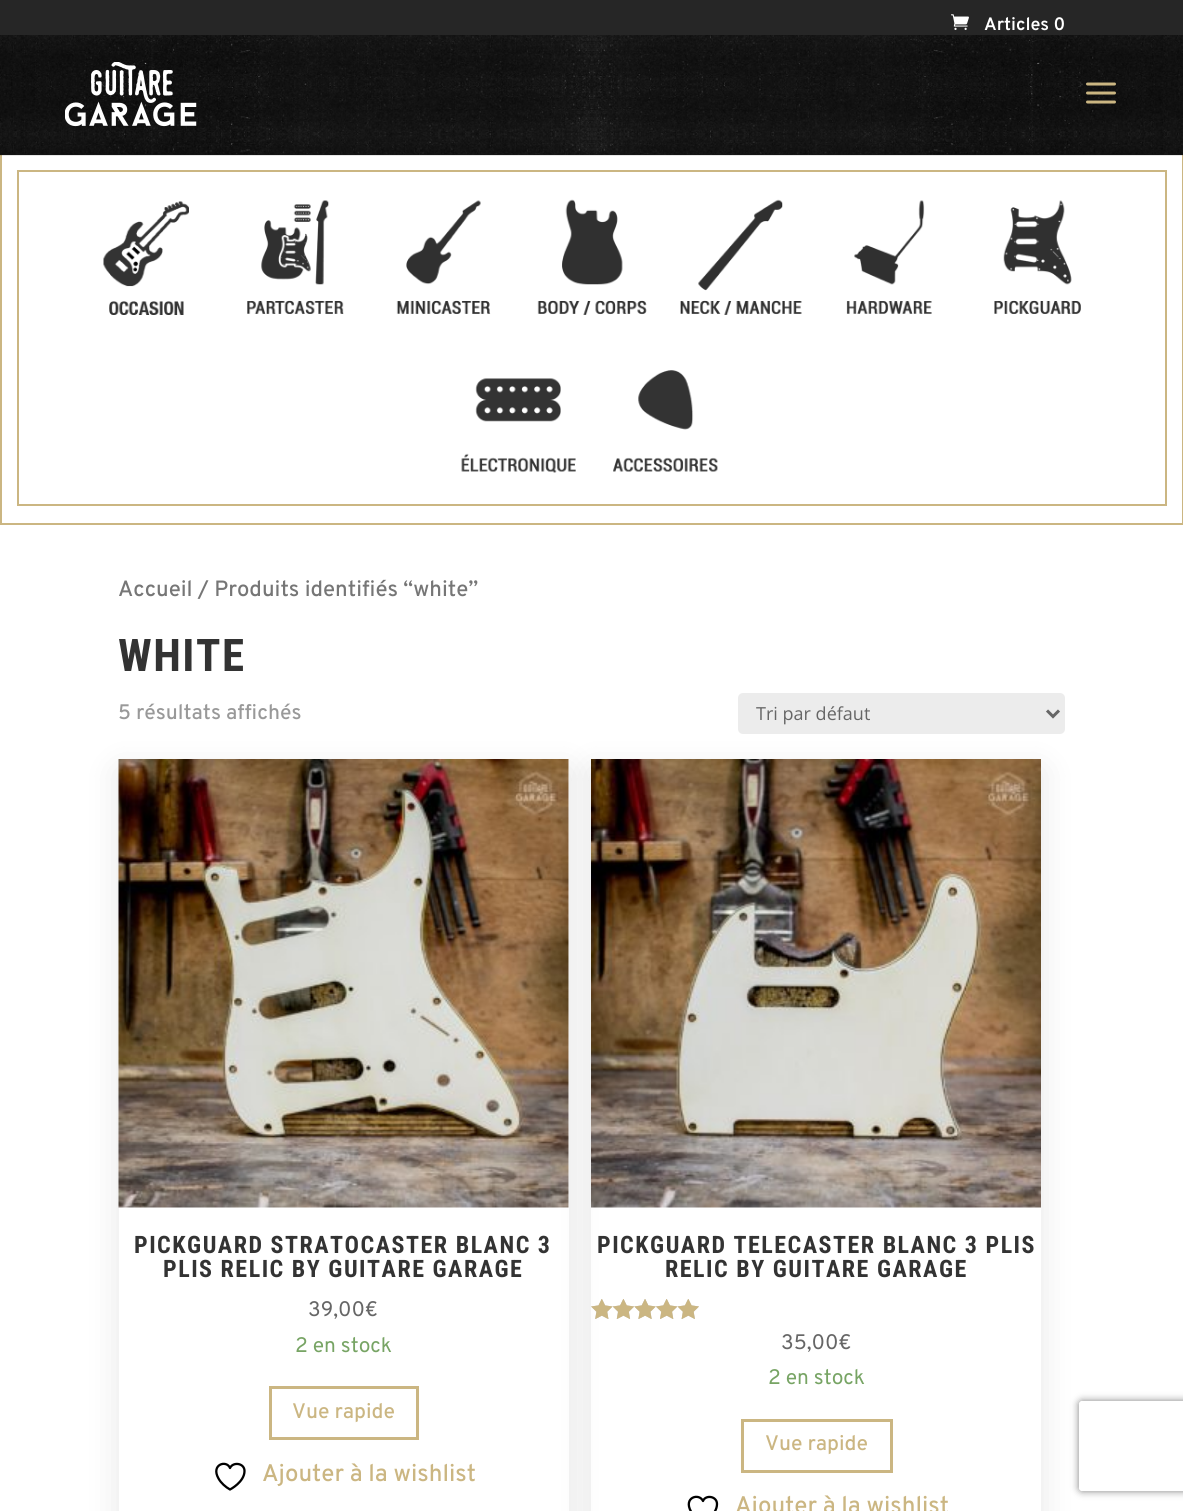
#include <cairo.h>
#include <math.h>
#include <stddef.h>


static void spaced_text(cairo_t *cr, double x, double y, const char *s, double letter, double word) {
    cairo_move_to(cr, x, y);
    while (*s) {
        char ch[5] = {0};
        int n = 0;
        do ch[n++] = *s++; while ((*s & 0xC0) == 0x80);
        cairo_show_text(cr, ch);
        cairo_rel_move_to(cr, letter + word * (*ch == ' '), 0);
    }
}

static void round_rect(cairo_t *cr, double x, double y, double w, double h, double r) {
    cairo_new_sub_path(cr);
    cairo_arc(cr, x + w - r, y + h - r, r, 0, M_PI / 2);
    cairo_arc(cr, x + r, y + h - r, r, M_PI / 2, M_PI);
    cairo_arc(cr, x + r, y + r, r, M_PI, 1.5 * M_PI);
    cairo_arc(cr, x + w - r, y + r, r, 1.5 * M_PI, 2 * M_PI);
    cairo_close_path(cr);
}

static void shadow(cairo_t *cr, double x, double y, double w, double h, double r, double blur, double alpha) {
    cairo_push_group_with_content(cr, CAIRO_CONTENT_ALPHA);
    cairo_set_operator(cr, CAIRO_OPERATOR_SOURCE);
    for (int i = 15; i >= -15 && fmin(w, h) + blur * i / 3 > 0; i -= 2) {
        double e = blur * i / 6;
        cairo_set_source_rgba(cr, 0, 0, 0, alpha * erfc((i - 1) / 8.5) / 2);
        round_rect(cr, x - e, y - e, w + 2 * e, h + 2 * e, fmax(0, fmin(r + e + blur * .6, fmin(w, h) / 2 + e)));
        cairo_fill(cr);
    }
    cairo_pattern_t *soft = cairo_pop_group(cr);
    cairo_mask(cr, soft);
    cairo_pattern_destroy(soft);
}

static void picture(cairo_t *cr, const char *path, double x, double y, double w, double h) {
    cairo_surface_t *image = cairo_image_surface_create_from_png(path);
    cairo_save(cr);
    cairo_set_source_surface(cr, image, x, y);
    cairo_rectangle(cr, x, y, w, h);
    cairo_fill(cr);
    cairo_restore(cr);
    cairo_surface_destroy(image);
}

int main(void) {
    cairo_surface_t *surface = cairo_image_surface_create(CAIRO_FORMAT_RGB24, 1183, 1511);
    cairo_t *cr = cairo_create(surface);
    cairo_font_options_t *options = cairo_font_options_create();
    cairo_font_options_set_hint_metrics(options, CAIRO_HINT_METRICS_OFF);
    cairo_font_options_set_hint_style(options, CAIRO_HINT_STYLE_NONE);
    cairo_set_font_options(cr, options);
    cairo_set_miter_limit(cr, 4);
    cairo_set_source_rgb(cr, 1, 1, 1);
    cairo_paint(cr);
    cairo_set_source_rgb(cr, 0.149, 0.149, 0.149);
    cairo_rectangle(cr, 0, 0, 1183, 35);
    cairo_fill(cr);
    picture(cr, "img1.png", 951, 14, 18, 16);
    cairo_select_font_face(cr, "Overpass SemiBold", CAIRO_FONT_SLANT_NORMAL, CAIRO_FONT_WEIGHT_NORMAL);
    cairo_set_font_size(cr, 18);
    cairo_set_source_rgb(cr, 1, 1, 1);
    cairo_move_to(cr, 984, 30);
    cairo_show_text(cr, "Articles 0");
    cairo_rectangle(cr, 1, 154, 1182, 370);
    cairo_set_source_rgb(cr, 0.796, 0.714, 0.51);
    cairo_stroke(cr);
    cairo_set_source_rgba(cr, 0, 0, 0, 0.1);
    cairo_new_path(cr);
    cairo_move_to(cr, 0, 154);
    cairo_line_to(cr, 0, 156);
    cairo_line_to(cr, 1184, 156);
    cairo_line_to(cr, 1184, 36);
    cairo_line_to(cr, 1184, 154);
    cairo_close_path(cr);
    cairo_fill(cr);
    cairo_set_source_rgb(cr, 0.086, 0.086, 0.086);
    cairo_rectangle(cr, 0, 154, 1183, 1);
    cairo_fill(cr);
    picture(cr, "img2.png", 0, 35, 1183, 120);
    picture(cr, "img3.png", 65, 62, 132, 65);
    picture(cr, "img4.png", 1086, 82, 30, 22);
    cairo_rectangle(cr, 18, 171, 1148, 334);
    cairo_set_source_rgb(cr, 0.796, 0.714, 0.51);
    cairo_stroke(cr);
    picture(cr, "img5.png", 103, 201, 86, 114);
    picture(cr, "img6.png", 247, 200, 97, 114);
    picture(cr, "img7.png", 396, 200, 95, 114);
    picture(cr, "img8.png", 537, 199, 110, 116);
    picture(cr, "img9.png", 680, 199, 122, 116);
    picture(cr, "img10.png", 846, 200, 86, 114);
    picture(cr, "img11.png", 994, 200, 87, 114);
    picture(cr, "img12.png", 461, 378, 115, 95);
    picture(cr, "img13.png", 613, 370, 105, 102);
    cairo_select_font_face(cr, "Overpass Medium", CAIRO_FONT_SLANT_NORMAL, CAIRO_FONT_WEIGHT_NORMAL);
    cairo_set_font_size(cr, 22.1);
    cairo_set_source_rgb(cr, 0.463, 0.463, 0.463);
    cairo_move_to(cr, 118, 596);
    cairo_show_text(cr, "Accueil / Produits identifiés “white”");
    cairo_select_font_face(cr, "Roboto Condensed", CAIRO_FONT_SLANT_NORMAL, CAIRO_FONT_WEIGHT_BOLD);
    cairo_set_font_size(cr, 45);
    cairo_set_source_rgb(cr, 0.2, 0.2, 0.2);
    spaced_text(cr, 118, 671, "WHITE", 1.5, 0);
    cairo_select_font_face(cr, "Overpass Medium", CAIRO_FONT_SLANT_NORMAL, CAIRO_FONT_WEIGHT_NORMAL);
    cairo_set_font_size(cr, 21);
    cairo_set_source_rgb(cr, 0.6, 0.6, 0.6);
    cairo_move_to(cr, 118, 719);
    cairo_show_text(cr, "5 résultats affichés");
    cairo_set_source_rgb(cr, 0.925, 0.925, 0.925);
    round_rect(cr, 738, 693, 327, 41, 5);
    cairo_fill(cr);
    cairo_new_path(cr);
    cairo_move_to(cr, 1047, 710.5);
    cairo_line_to(cr, 1053, 716.5);
    cairo_line_to(cr, 1059, 710.5);
    cairo_set_source_rgb(cr, 0.4, 0.4, 0.4);
    cairo_set_line_width(cr, 3);
    cairo_stroke(cr);
    cairo_select_font_face(cr, "Open Sans", CAIRO_FONT_SLANT_NORMAL, CAIRO_FONT_WEIGHT_NORMAL);
    cairo_set_font_size(cr, 18);
    cairo_move_to(cr, 756, 720);
    cairo_show_text(cr, "Tri par défaut");
    cairo_save(cr);
    cairo_set_fill_rule(cr, CAIRO_FILL_RULE_EVEN_ODD);
    cairo_new_path(cr);
    cairo_move_to(cr, 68, 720);
    cairo_line_to(cr, 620, 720);
    cairo_line_to(cr, 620, 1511);
    cairo_line_to(cr, 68, 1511);
    cairo_close_path(cr);
    cairo_move_to(cr, 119, 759);
    cairo_line_to(cr, 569, 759);
    cairo_line_to(cr, 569, 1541);
    cairo_line_to(cr, 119, 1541);
    cairo_close_path(cr);
    cairo_clip(cr);
    cairo_set_source_rgb(cr, 0, 0, 0);
    shadow(cr, 119, 771, 450, 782, 0, 16.5, 0.1);
    cairo_restore(cr);
    picture(cr, "img14.png", 118, 759, 451, 449);
    cairo_select_font_face(cr, "Roboto Condensed", CAIRO_FONT_SLANT_NORMAL, CAIRO_FONT_WEIGHT_BOLD);
    cairo_set_font_size(cr, 24);
    cairo_set_source_rgb(cr, 0.2, 0.2, 0.2);
    spaced_text(cr, 134, 1253, "PICKGUARD STRATOCASTER BLANC 3", 1.5, 0);
    spaced_text(cr, 163, 1277, "PLIS RELIC BY GUITARE GARAGE", 1.5, 0);
    cairo_select_font_face(cr, "Overpass", CAIRO_FONT_SLANT_NORMAL, CAIRO_FONT_WEIGHT_NORMAL);
    cairo_set_font_size(cr, 21);
    cairo_set_source_rgb(cr, 0.4, 0.4, 0.4);
    cairo_move_to(cr, 308, 1316);
    cairo_show_text(cr, "39,00€");
    cairo_set_source_rgb(cr, 0.467, 0.643, 0.392);
    cairo_move_to(cr, 295, 1352);
    cairo_show_text(cr, "2 en stock");
    cairo_rectangle(cr, 270.5, 1387.5, 147, 51);
    cairo_set_source_rgb(cr, 0.796, 0.714, 0.51);
    cairo_stroke(cr);
    cairo_select_font_face(cr, "Overpass Medium", CAIRO_FONT_SLANT_NORMAL, CAIRO_FONT_WEIGHT_NORMAL);
    cairo_move_to(cr, 292, 1418);
    cairo_show_text(cr, "Vue rapide");
    cairo_new_path(cr);
    cairo_move_to(cr, 244.5, 1471);
    cairo_curve_to(cr, 244.5, 1463, 233, 1461.5, 230, 1468);
    cairo_curve_to(cr, 226.5, 1459.5, 210.5, 1464.5, 218.5, 1478.5);
    cairo_curve_to(cr, 221, 1483, 225.5, 1487, 230, 1489.5);
    cairo_curve_to(cr, 230, 1489.5, 244.5, 1482, 244.5, 1471);
    cairo_close_path(cr);
    cairo_set_source_rgb(cr, 0, 0, 0);
    cairo_set_line_width(cr, 2.3);
    cairo_set_line_cap(cr, CAIRO_LINE_CAP_ROUND);
    cairo_set_line_join(cr, CAIRO_LINE_JOIN_ROUND);
    cairo_stroke(cr);
    cairo_set_font_size(cr, 24);
    cairo_set_source_rgb(cr, 0.796, 0.714, 0.51);
    cairo_move_to(cr, 262, 1481);
    cairo_show_text(cr, "Ajouter à la wishlist");
    cairo_save(cr);
    cairo_set_fill_rule(cr, CAIRO_FILL_RULE_EVEN_ODD);
    cairo_new_path(cr);
    cairo_move_to(cr, 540, 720);
    cairo_line_to(cr, 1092, 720);
    cairo_line_to(cr, 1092, 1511);
    cairo_line_to(cr, 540, 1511);
    cairo_close_path(cr);
    cairo_move_to(cr, 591, 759);
    cairo_line_to(cr, 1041, 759);
    cairo_line_to(cr, 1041, 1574);
    cairo_line_to(cr, 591, 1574);
    cairo_close_path(cr);
    cairo_clip(cr);
    cairo_set_source_rgb(cr, 0, 0, 0);
    shadow(cr, 591, 771, 450, 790, 0, 16.5, 0.1);
    cairo_restore(cr);
    picture(cr, "img15.png", 591, 759, 450, 449);
    cairo_select_font_face(cr, "Roboto Condensed", CAIRO_FONT_SLANT_NORMAL, CAIRO_FONT_WEIGHT_BOLD);
    cairo_set_source_rgb(cr, 0.2, 0.2, 0.2);
    spaced_text(cr, 597, 1253, "PICKGUARD TELECASTER BLANC 3 PLIS", 1.5, 0);
    spaced_text(cr, 665, 1277, "RELIC BY GUITARE GARAGE", 1.5, 0);
    picture(cr, "img16.png", 591, 1299, 108, 20);
    picture(cr, "img17.png", 591, 1299, 108, 20);
    cairo_select_font_face(cr, "Overpass", CAIRO_FONT_SLANT_NORMAL, CAIRO_FONT_WEIGHT_NORMAL);
    cairo_set_font_size(cr, 21);
    cairo_set_source_rgb(cr, 0.4, 0.4, 0.4);
    cairo_move_to(cr, 781, 1349);
    cairo_show_text(cr, "35,00€");
    cairo_set_source_rgb(cr, 0.467, 0.643, 0.392);
    cairo_move_to(cr, 768, 1384);
    cairo_show_text(cr, "2 en stock");
    cairo_rectangle(cr, 742.5, 1420.5, 149, 51);
    cairo_set_source_rgb(cr, 0.796, 0.714, 0.51);
    cairo_set_line_width(cr, 3);
    cairo_set_line_cap(cr, CAIRO_LINE_CAP_BUTT);
    cairo_set_line_join(cr, CAIRO_LINE_JOIN_MITER);
    cairo_stroke(cr);
    cairo_select_font_face(cr, "Overpass Medium", CAIRO_FONT_SLANT_NORMAL, CAIRO_FONT_WEIGHT_NORMAL);
    cairo_move_to(cr, 765, 1450);
    cairo_show_text(cr, "Vue rapide");
    cairo_new_path(cr);
    cairo_move_to(cr, 717, 1504);
    cairo_curve_to(cr, 717, 1496, 705.5, 1494.5, 703, 1501);
    cairo_curve_to(cr, 699, 1492.5, 683, 1497.5, 691, 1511.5);
    cairo_curve_to(cr, 693.5, 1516, 698, 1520, 703, 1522.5);
    cairo_curve_to(cr, 703, 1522.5, 717, 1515, 717, 1504);
    cairo_close_path(cr);
    cairo_set_source_rgb(cr, 0, 0, 0);
    cairo_set_line_width(cr, 2.3);
    cairo_set_line_cap(cr, CAIRO_LINE_CAP_ROUND);
    cairo_set_line_join(cr, CAIRO_LINE_JOIN_ROUND);
    cairo_stroke(cr);
    cairo_set_font_size(cr, 24);
    cairo_set_source_rgb(cr, 0.796, 0.714, 0.51);
    cairo_move_to(cr, 735, 1513);
    cairo_show_text(cr, "Ajouter à la wishlist");
    cairo_save(cr);
    cairo_set_fill_rule(cr, CAIRO_FILL_RULE_EVEN_ODD);
    cairo_new_path(cr);
    cairo_move_to(cr, 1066, 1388);
    cairo_line_to(cr, 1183, 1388);
    cairo_line_to(cr, 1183, 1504);
    cairo_line_to(cr, 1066, 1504);
    cairo_close_path(cr);
    cairo_move_to(cr, 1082, 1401);
    cairo_line_to(cr, 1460, 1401);
    cairo_curve_to(cr, 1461.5, 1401, 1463, 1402.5, 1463, 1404);
    cairo_line_to(cr, 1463, 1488);
    cairo_curve_to(cr, 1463, 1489.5, 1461.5, 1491, 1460, 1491);
    cairo_line_to(cr, 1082, 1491);
    cairo_curve_to(cr, 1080.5, 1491, 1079, 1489.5, 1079, 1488);
    cairo_line_to(cr, 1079, 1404);
    cairo_curve_to(cr, 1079, 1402.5, 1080.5, 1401, 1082, 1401);
    cairo_close_path(cr);
    cairo_clip(cr);
    cairo_set_source_rgb(cr, 0.502, 0.502, 0.502);
    shadow(cr, 1079, 1401, 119, 90, 3, 4, 1);
    cairo_restore(cr);
    cairo_surface_write_to_png(surface, "page.png");
    cairo_font_options_destroy(options);
    cairo_destroy(cr);
    cairo_surface_destroy(surface);
    return 0;
}
